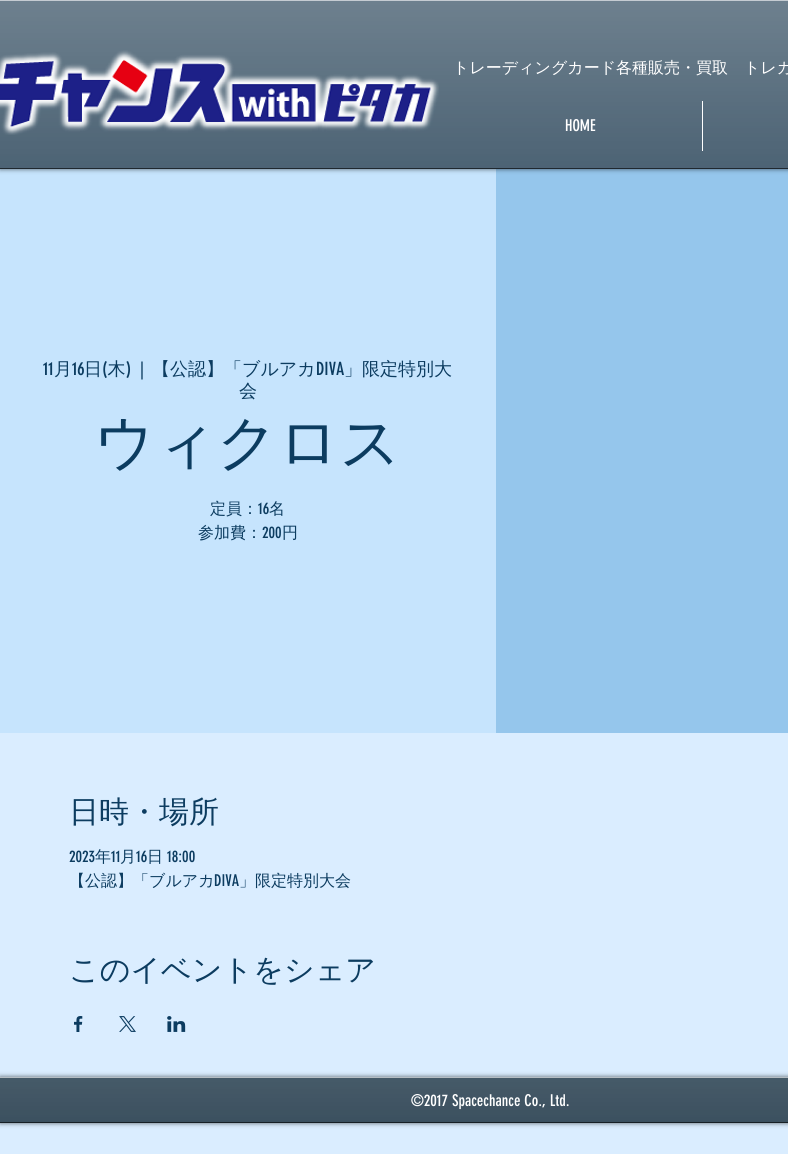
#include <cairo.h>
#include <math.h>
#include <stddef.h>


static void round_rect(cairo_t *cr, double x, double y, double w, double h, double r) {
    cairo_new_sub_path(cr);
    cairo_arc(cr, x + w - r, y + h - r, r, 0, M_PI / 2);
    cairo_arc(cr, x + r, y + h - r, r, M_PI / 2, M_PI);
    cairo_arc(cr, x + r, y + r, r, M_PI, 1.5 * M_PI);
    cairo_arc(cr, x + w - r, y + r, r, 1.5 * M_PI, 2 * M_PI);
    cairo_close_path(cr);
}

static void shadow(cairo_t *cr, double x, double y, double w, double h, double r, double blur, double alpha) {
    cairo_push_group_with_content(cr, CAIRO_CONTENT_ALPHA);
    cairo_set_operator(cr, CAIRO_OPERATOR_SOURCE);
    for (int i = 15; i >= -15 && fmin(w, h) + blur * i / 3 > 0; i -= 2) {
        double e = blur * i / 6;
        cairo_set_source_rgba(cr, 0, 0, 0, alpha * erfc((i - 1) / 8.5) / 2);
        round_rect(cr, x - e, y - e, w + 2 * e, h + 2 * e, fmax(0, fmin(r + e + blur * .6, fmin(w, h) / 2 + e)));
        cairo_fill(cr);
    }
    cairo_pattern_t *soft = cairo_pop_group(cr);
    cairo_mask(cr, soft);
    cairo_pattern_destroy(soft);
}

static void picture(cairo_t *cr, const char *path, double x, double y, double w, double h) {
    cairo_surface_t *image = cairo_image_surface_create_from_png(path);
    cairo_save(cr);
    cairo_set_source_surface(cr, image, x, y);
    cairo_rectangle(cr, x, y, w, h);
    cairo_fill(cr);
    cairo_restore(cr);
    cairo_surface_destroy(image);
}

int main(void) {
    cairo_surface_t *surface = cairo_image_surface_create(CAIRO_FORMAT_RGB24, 788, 1154);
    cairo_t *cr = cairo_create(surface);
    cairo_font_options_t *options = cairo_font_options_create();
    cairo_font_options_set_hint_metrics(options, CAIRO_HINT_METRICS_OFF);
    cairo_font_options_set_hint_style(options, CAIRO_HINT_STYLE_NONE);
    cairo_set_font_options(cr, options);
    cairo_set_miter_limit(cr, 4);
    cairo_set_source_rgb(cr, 0.855, 0.929, 1);
    cairo_paint(cr);
    cairo_set_source_rgb(cr, 0.776, 0.894, 0.992);
    cairo_rectangle(cr, 0, 169, 496, 564);
    cairo_fill(cr);
    cairo_set_source_rgb(cr, 0.584, 0.776, 0.925);
    cairo_rectangle(cr, 496, 169, 292, 564);
    cairo_fill(cr);
    cairo_set_source_rgb(cr, 0, 0, 0);
    shadow(cr, 0, 0, 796, 169, 0, 2.5, 0.6);
    cairo_set_source_rgb(cr, 0.231, 0.329, 0.404);
    cairo_rectangle(cr, 0, 1, 788, 167);
    cairo_fill(cr);
    picture(cr, "img1.png", 0, 1, 788, 167);
    cairo_set_source_rgb(cr, 0.122, 0.157, 0.184);
    cairo_rectangle(cr, 0, 168, 788, 1);
    cairo_fill(cr);
    cairo_set_source_rgb(cr, 0.773, 0.8, 0.824);
    cairo_rectangle(cr, 0, 0, 788, 1);
    cairo_fill(cr);
    picture(cr, "img2.png", 0, 50, 439, 85);
    cairo_select_font_face(cr, "WenQuanYi Zen Hei Medium", CAIRO_FONT_SLANT_NORMAL, CAIRO_FONT_WEIGHT_NORMAL);
    cairo_set_font_size(cr, 16);
    cairo_set_source_rgb(cr, 1, 1, 1);
    cairo_move_to(cr, 453, 73);
    cairo_show_text(cr, "トレーディングカード各種販売・買取　トレカ");
    cairo_select_font_face(cr, "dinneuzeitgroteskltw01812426", CAIRO_FONT_SLANT_NORMAL, CAIRO_FONT_WEIGHT_NORMAL);
    cairo_move_to(cr, 565, 131);
    cairo_show_text(cr, "HOME");
    cairo_rectangle(cr, 702, 101, 1, 50);
    cairo_fill(cr);
    cairo_select_font_face(cr, "WenQuanYi Zen Hei Medium", CAIRO_FONT_SLANT_NORMAL, CAIRO_FONT_WEIGHT_NORMAL);
    cairo_set_font_size(cr, 18);
    cairo_set_source_rgb(cr, 0.047, 0.235, 0.376);
    cairo_move_to(cr, 54, 375);
    cairo_show_text(cr, "月");
    cairo_move_to(cr, 84, 375);
    cairo_show_text(cr, "日 木");
    cairo_move_to(cr, 152, 375);
    cairo_show_text(cr, "【公認】「ブルアカ");
    cairo_move_to(cr, 344, 375);
    cairo_show_text(cr, "」限定特別大");
    cairo_select_font_face(cr, "dinneuzeitgroteskltw01812426", CAIRO_FONT_SLANT_NORMAL, CAIRO_FONT_WEIGHT_NORMAL);
    cairo_move_to(cr, 43, 375);
    cairo_show_text(cr, "11");
    cairo_move_to(cr, 72, 375);
    cairo_show_text(cr, "16");
    cairo_move_to(cr, 102, 375);
    cairo_show_text(cr, "(");
    cairo_move_to(cr, 126, 375);
    cairo_show_text(cr, ")");
    cairo_move_to(cr, 140, 375);
    cairo_show_text(cr, "|");
    cairo_move_to(cr, 316, 375);
    cairo_show_text(cr, "DIVA");
    cairo_select_font_face(cr, "WenQuanYi Zen Hei Medium", CAIRO_FONT_SLANT_NORMAL, CAIRO_FONT_WEIGHT_NORMAL);
    cairo_move_to(cr, 239, 397);
    cairo_show_text(cr, "会");
    cairo_set_font_size(cr, 60);
    cairo_move_to(cr, 94, 463);
    cairo_show_text(cr, "ウィクロス");
    cairo_set_font_size(cr, 16);
    cairo_move_to(cr, 210, 514);
    cairo_show_text(cr, "定員：");
    cairo_select_font_face(cr, "dinneuzeitgroteskltw01812426", CAIRO_FONT_SLANT_NORMAL, CAIRO_FONT_WEIGHT_NORMAL);
    cairo_move_to(cr, 258, 514);
    cairo_show_text(cr, "16");
    cairo_select_font_face(cr, "WenQuanYi Zen Hei Medium", CAIRO_FONT_SLANT_NORMAL, CAIRO_FONT_WEIGHT_NORMAL);
    cairo_move_to(cr, 269, 514);
    cairo_show_text(cr, "名");
    cairo_move_to(cr, 198, 538);
    cairo_show_text(cr, "参加費：");
    cairo_select_font_face(cr, "dinneuzeitgroteskltw01812426", CAIRO_FONT_SLANT_NORMAL, CAIRO_FONT_WEIGHT_NORMAL);
    cairo_move_to(cr, 262, 538);
    cairo_show_text(cr, "200");
    cairo_select_font_face(cr, "WenQuanYi Zen Hei Medium", CAIRO_FONT_SLANT_NORMAL, CAIRO_FONT_WEIGHT_NORMAL);
    cairo_move_to(cr, 282, 538);
    cairo_show_text(cr, "円");
    cairo_set_font_size(cr, 30);
    cairo_move_to(cr, 69, 822);
    cairo_show_text(cr, "日時・場所");
    cairo_select_font_face(cr, "dinneuzeitgroteskltw01812426", CAIRO_FONT_SLANT_NORMAL, CAIRO_FONT_WEIGHT_NORMAL);
    cairo_set_font_size(cr, 16);
    cairo_move_to(cr, 69, 862);
    cairo_show_text(cr, "2023");
    cairo_select_font_face(cr, "WenQuanYi Zen Hei Medium", CAIRO_FONT_SLANT_NORMAL, CAIRO_FONT_WEIGHT_NORMAL);
    cairo_move_to(cr, 95, 862);
    cairo_show_text(cr, "年");
    cairo_select_font_face(cr, "dinneuzeitgroteskltw01812426", CAIRO_FONT_SLANT_NORMAL, CAIRO_FONT_WEIGHT_NORMAL);
    cairo_move_to(cr, 111, 862);
    cairo_show_text(cr, "11");
    cairo_select_font_face(cr, "WenQuanYi Zen Hei Medium", CAIRO_FONT_SLANT_NORMAL, CAIRO_FONT_WEIGHT_NORMAL);
    cairo_move_to(cr, 120, 862);
    cairo_show_text(cr, "月");
    cairo_select_font_face(cr, "dinneuzeitgroteskltw01812426", CAIRO_FONT_SLANT_NORMAL, CAIRO_FONT_WEIGHT_NORMAL);
    cairo_move_to(cr, 136, 862);
    cairo_show_text(cr, "16");
    cairo_select_font_face(cr, "WenQuanYi Zen Hei Medium", CAIRO_FONT_SLANT_NORMAL, CAIRO_FONT_WEIGHT_NORMAL);
    cairo_move_to(cr, 147, 862);
    cairo_show_text(cr, "日");
    cairo_select_font_face(cr, "dinneuzeitgroteskltw01812426", CAIRO_FONT_SLANT_NORMAL, CAIRO_FONT_WEIGHT_NORMAL);
    cairo_move_to(cr, 167, 862);
    cairo_show_text(cr, "18:00");
    cairo_select_font_face(cr, "WenQuanYi Zen Hei Medium", CAIRO_FONT_SLANT_NORMAL, CAIRO_FONT_WEIGHT_NORMAL);
    cairo_move_to(cr, 69, 886);
    cairo_show_text(cr, "【公認】「ブルアカ");
    cairo_select_font_face(cr, "dinneuzeitgroteskltw01812426", CAIRO_FONT_SLANT_NORMAL, CAIRO_FONT_WEIGHT_NORMAL);
    cairo_move_to(cr, 214, 886);
    cairo_show_text(cr, "DIVA");
    cairo_select_font_face(cr, "WenQuanYi Zen Hei Medium", CAIRO_FONT_SLANT_NORMAL, CAIRO_FONT_WEIGHT_NORMAL);
    cairo_move_to(cr, 239, 886);
    cairo_show_text(cr, "」限定特別大会");
    cairo_set_font_size(cr, 30);
    cairo_move_to(cr, 69, 980);
    cairo_show_text(cr, "このイベントをシェア");
    picture(cr, "img3.png", 74, 1016, 9, 16);
    picture(cr, "img4.png", 119, 1016, 17, 16);
    picture(cr, "img5.png", 167, 1016, 19, 16);
    cairo_set_source_rgb(cr, 0, 0, 0);
    shadow(cr, 0, 1077, 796, 46, 0, 2.5, 0.6);
    cairo_set_source_rgb(cr, 0.024, 0.129, 0.204);
    cairo_rectangle(cr, 0, 1078, 788, 44);
    cairo_fill(cr);
    picture(cr, "img6.png", 0, 1078, 788, 44);
    cairo_set_source_rgb(cr, 0.09, 0.125, 0.149);
    cairo_rectangle(cr, 0, 1122, 788, 1);
    cairo_fill(cr);
    cairo_set_source_rgb(cr, 0.71, 0.741, 0.765);
    cairo_rectangle(cr, 0, 1077, 788, 1);
    cairo_fill(cr);
    cairo_select_font_face(cr, "dinneuzeitgroteskltw01812426", CAIRO_FONT_SLANT_NORMAL, CAIRO_FONT_WEIGHT_NORMAL);
    cairo_set_font_size(cr, 16);
    cairo_set_source_rgb(cr, 1, 1, 1);
    cairo_move_to(cr, 411, 1106);
    cairo_show_text(cr, "©2017 Spacechance Co., Ltd.");
    cairo_surface_write_to_png(surface, "page.png");
    cairo_font_options_destroy(options);
    cairo_destroy(cr);
    cairo_surface_destroy(surface);
    return 0;
}
